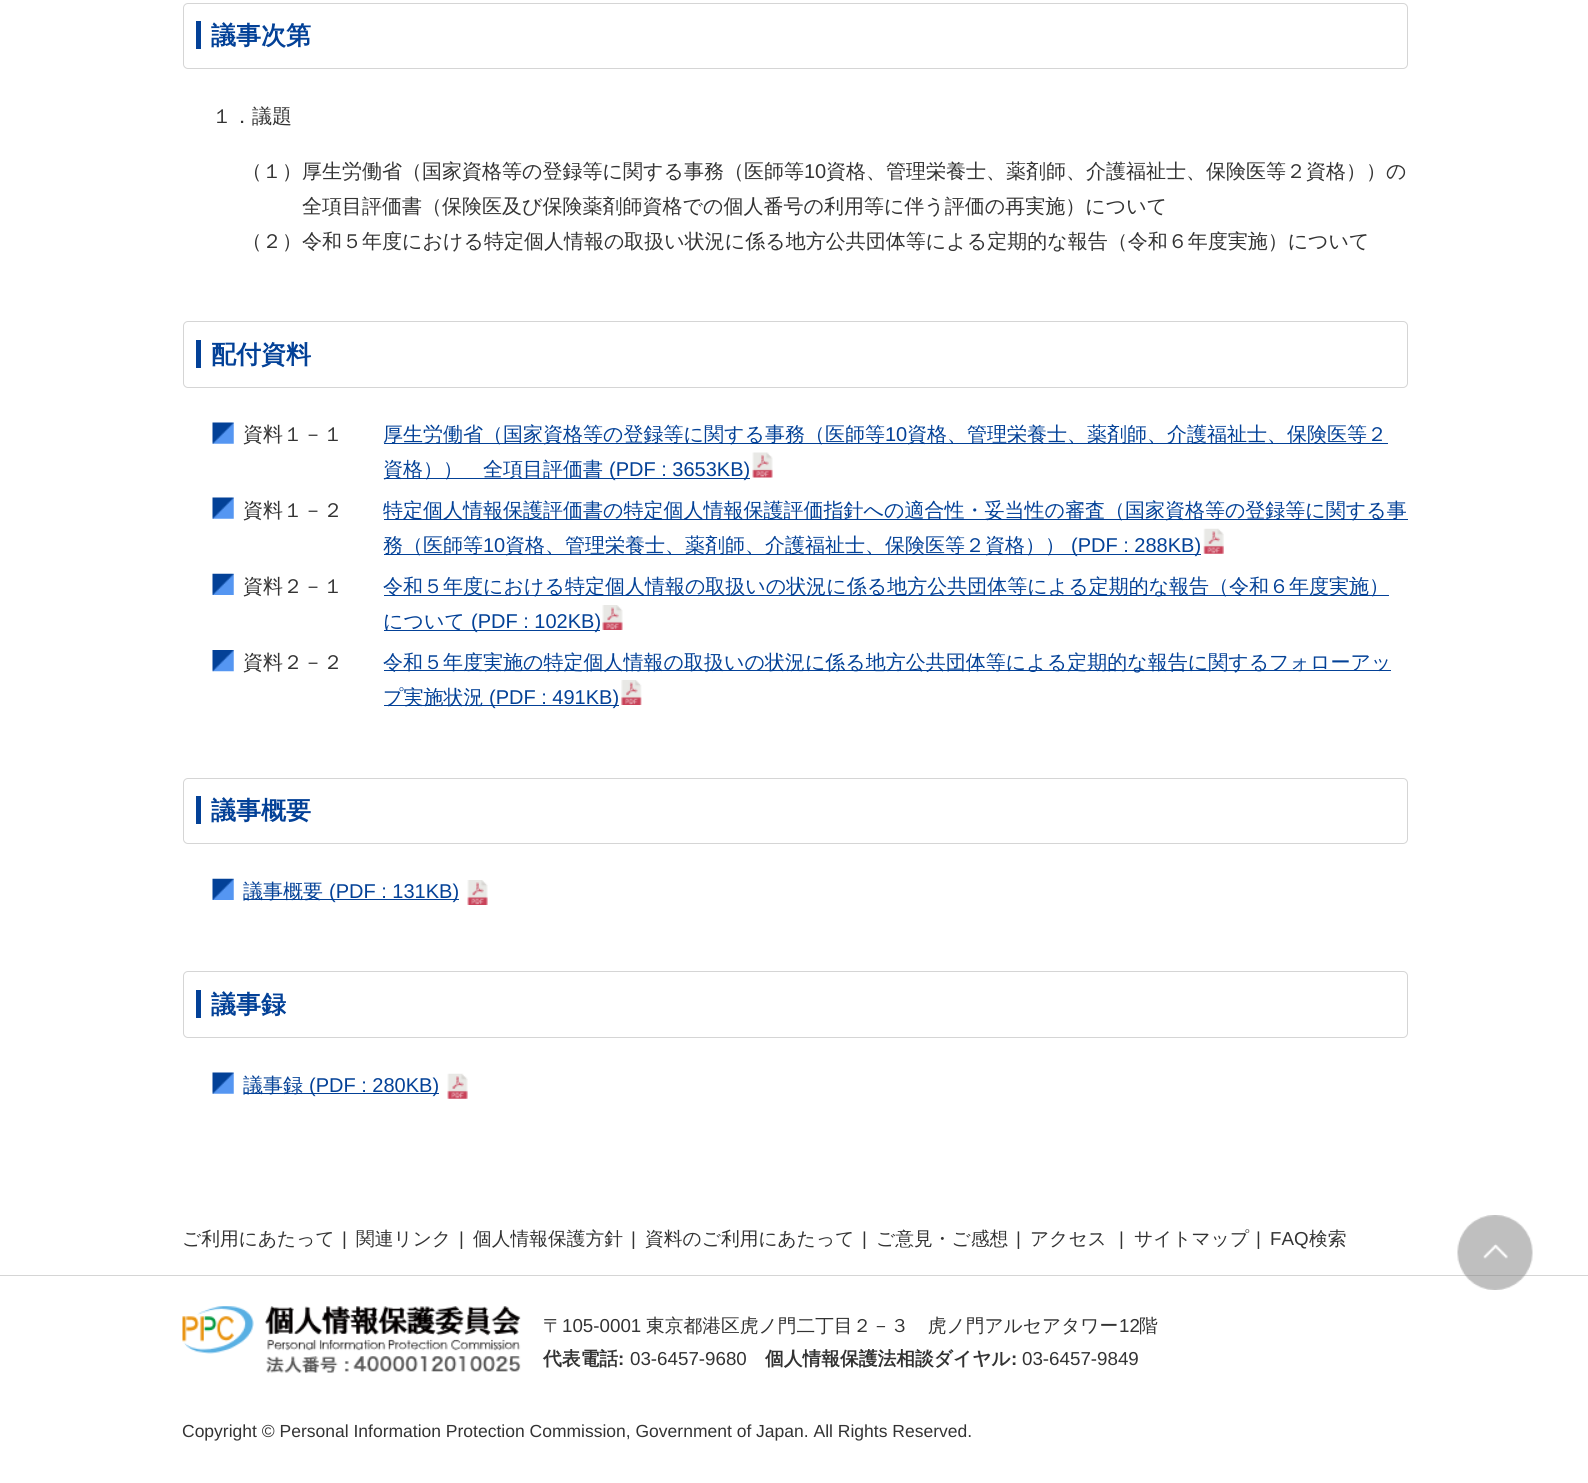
#include <cairo.h>
#include <math.h>
#include <stddef.h>


static void round_rect(cairo_t *cr, double x, double y, double w, double h, double r) {
    cairo_new_sub_path(cr);
    cairo_arc(cr, x + w - r, y + h - r, r, 0, M_PI / 2);
    cairo_arc(cr, x + r, y + h - r, r, M_PI / 2, M_PI);
    cairo_arc(cr, x + r, y + r, r, M_PI, 1.5 * M_PI);
    cairo_arc(cr, x + w - r, y + r, r, 1.5 * M_PI, 2 * M_PI);
    cairo_close_path(cr);
}

static void picture(cairo_t *cr, const char *path, double x, double y, double w, double h) {
    cairo_surface_t *image = cairo_image_surface_create_from_png(path);
    cairo_save(cr);
    cairo_set_source_surface(cr, image, x, y);
    cairo_rectangle(cr, x, y, w, h);
    cairo_fill(cr);
    cairo_restore(cr);
    cairo_surface_destroy(image);
}

int main(void) {
    cairo_surface_t *surface = cairo_image_surface_create(CAIRO_FORMAT_RGB24, 1588, 1483);
    cairo_t *cr = cairo_create(surface);
    cairo_font_options_t *options = cairo_font_options_create();
    cairo_font_options_set_hint_metrics(options, CAIRO_HINT_METRICS_OFF);
    cairo_font_options_set_hint_style(options, CAIRO_HINT_STYLE_NONE);
    cairo_set_font_options(cr, options);
    cairo_set_miter_limit(cr, 4);
    cairo_set_source_rgb(cr, 1, 1, 1);
    cairo_paint(cr);
    round_rect(cr, 183.5, 3.5, 1224, 65, 4.5);
    cairo_set_source_rgb(cr, 0.835, 0.835, 0.835);
    cairo_set_line_width(cr, 1);
    cairo_stroke(cr);
    cairo_select_font_face(cr, "WenQuanYi Zen Hei", CAIRO_FONT_SLANT_NORMAL, CAIRO_FONT_WEIGHT_BOLD);
    cairo_set_font_size(cr, 25);
    cairo_set_source_rgb(cr, 0.012, 0.255, 0.592);
    cairo_move_to(cr, 211, 44);
    cairo_show_text(cr, "議事次第");
    cairo_rectangle(cr, 196, 21, 5, 28);
    cairo_fill(cr);
    cairo_select_font_face(cr, "WenQuanYi Zen Hei Medium", CAIRO_FONT_SLANT_NORMAL, CAIRO_FONT_WEIGHT_NORMAL);
    cairo_set_font_size(cr, 20);
    cairo_set_source_rgb(cr, 0.2, 0.2, 0.2);
    cairo_move_to(cr, 212, 123);
    cairo_show_text(cr, "１．議題");
    cairo_move_to(cr, 242, 178);
    cairo_show_text(cr, "（１）厚生労働省（国家資格等の登録等に関する事務（医師等");
    cairo_select_font_face(cr, "Liberation Sans", CAIRO_FONT_SLANT_NORMAL, CAIRO_FONT_WEIGHT_NORMAL);
    cairo_move_to(cr, 804, 178);
    cairo_show_text(cr, "10");
    cairo_select_font_face(cr, "WenQuanYi Zen Hei Medium", CAIRO_FONT_SLANT_NORMAL, CAIRO_FONT_WEIGHT_NORMAL);
    cairo_move_to(cr, 826, 178);
    cairo_show_text(cr, "資格、管理栄養士、薬剤師、介護福祉士、保険医等２資格））の");
    cairo_move_to(cr, 302, 213);
    cairo_show_text(cr, "全項目評価書（保険医及び保険薬剤師資格での個人番号の利用等に伴う評価の再実施）について");
    cairo_move_to(cr, 242, 248);
    cairo_show_text(cr, "（２）令和５年度における特定個人情報の取扱い状況に係る地方公共団体等による定期的な報告（令和６年度実施）について");
    round_rect(cr, 183.5, 321.5, 1224, 66, 4.5);
    cairo_set_source_rgb(cr, 0.835, 0.835, 0.835);
    cairo_stroke(cr);
    cairo_select_font_face(cr, "WenQuanYi Zen Hei", CAIRO_FONT_SLANT_NORMAL, CAIRO_FONT_WEIGHT_BOLD);
    cairo_set_font_size(cr, 25);
    cairo_set_source_rgb(cr, 0.012, 0.255, 0.592);
    cairo_move_to(cr, 211, 363);
    cairo_show_text(cr, "配付資料");
    cairo_rectangle(cr, 196, 340, 5, 28);
    cairo_fill(cr);
    picture(cr, "img1.png", 212, 422, 22, 22);
    cairo_select_font_face(cr, "WenQuanYi Zen Hei Medium", CAIRO_FONT_SLANT_NORMAL, CAIRO_FONT_WEIGHT_NORMAL);
    cairo_set_font_size(cr, 20);
    cairo_set_source_rgb(cr, 0.2, 0.2, 0.2);
    cairo_move_to(cr, 243, 441);
    cairo_show_text(cr, "資料１－１");
    cairo_set_source_rgb(cr, 0.012, 0.255, 0.592);
    cairo_rectangle(cr, 384, 443, 1004, 1);
    cairo_fill(cr);
    cairo_move_to(cr, 383, 441);
    cairo_show_text(cr, "厚生労働省（国家資格等の登録等に関する事務（医師等");
    cairo_select_font_face(cr, "Liberation Sans", CAIRO_FONT_SLANT_NORMAL, CAIRO_FONT_WEIGHT_NORMAL);
    cairo_move_to(cr, 885, 441);
    cairo_show_text(cr, "10");
    cairo_select_font_face(cr, "WenQuanYi Zen Hei Medium", CAIRO_FONT_SLANT_NORMAL, CAIRO_FONT_WEIGHT_NORMAL);
    cairo_move_to(cr, 907, 441);
    cairo_show_text(cr, "資格、管理栄養士、薬剤師、介護福祉士、保険医等２");
    cairo_rectangle(cr, 384, 478, 366, 1);
    cairo_fill(cr);
    cairo_move_to(cr, 383, 476);
    cairo_show_text(cr, "資格））　全項目評価書");
    cairo_select_font_face(cr, "Liberation Sans", CAIRO_FONT_SLANT_NORMAL, CAIRO_FONT_WEIGHT_NORMAL);
    cairo_move_to(cr, 609, 476);
    cairo_show_text(cr, "(PDF : 3653KB)");
    picture(cr, "img2.png", 752, 452, 21, 26);
    picture(cr, "img3.png", 212, 497, 22, 22);
    cairo_select_font_face(cr, "WenQuanYi Zen Hei Medium", CAIRO_FONT_SLANT_NORMAL, CAIRO_FONT_WEIGHT_NORMAL);
    cairo_set_source_rgb(cr, 0.2, 0.2, 0.2);
    cairo_move_to(cr, 243, 517);
    cairo_show_text(cr, "資料１－２");
    cairo_set_source_rgb(cr, 0.012, 0.255, 0.592);
    cairo_rectangle(cr, 384, 519, 1024, 1);
    cairo_fill(cr);
    cairo_move_to(cr, 383, 517);
    cairo_show_text(cr, "特定個人情報保護評価書の特定個人情報保護評価指針への適合性・妥当性の審査（国家資格等の登録等に関する事");
    cairo_rectangle(cr, 384, 554, 817, 1);
    cairo_fill(cr);
    cairo_move_to(cr, 383, 552);
    cairo_show_text(cr, "務（医師等");
    cairo_select_font_face(cr, "Liberation Sans", CAIRO_FONT_SLANT_NORMAL, CAIRO_FONT_WEIGHT_NORMAL);
    cairo_move_to(cr, 483, 552);
    cairo_show_text(cr, "10");
    cairo_select_font_face(cr, "WenQuanYi Zen Hei Medium", CAIRO_FONT_SLANT_NORMAL, CAIRO_FONT_WEIGHT_NORMAL);
    cairo_move_to(cr, 505, 552);
    cairo_show_text(cr, "資格、管理栄養士、薬剤師、介護福祉士、保険医等２資格））");
    cairo_select_font_face(cr, "Liberation Sans", CAIRO_FONT_SLANT_NORMAL, CAIRO_FONT_WEIGHT_NORMAL);
    cairo_move_to(cr, 1071, 552);
    cairo_show_text(cr, "(PDF : 288KB)");
    picture(cr, "img4.png", 1203, 528, 21, 26);
    picture(cr, "img5.png", 212, 573, 22, 22);
    cairo_select_font_face(cr, "WenQuanYi Zen Hei Medium", CAIRO_FONT_SLANT_NORMAL, CAIRO_FONT_WEIGHT_NORMAL);
    cairo_set_source_rgb(cr, 0.2, 0.2, 0.2);
    cairo_move_to(cr, 243, 593);
    cairo_show_text(cr, "資料２－１");
    cairo_set_source_rgb(cr, 0.012, 0.255, 0.592);
    cairo_rectangle(cr, 384, 595, 1005, 1);
    cairo_fill(cr);
    cairo_move_to(cr, 383, 593);
    cairo_show_text(cr, "令和５年度における特定個人情報の取扱いの状況に係る地方公共団体等による定期的な報告（令和６年度実施）");
    cairo_rectangle(cr, 384, 630, 216, 1);
    cairo_fill(cr);
    cairo_move_to(cr, 383, 628);
    cairo_show_text(cr, "について");
    cairo_select_font_face(cr, "Liberation Sans", CAIRO_FONT_SLANT_NORMAL, CAIRO_FONT_WEIGHT_NORMAL);
    cairo_move_to(cr, 471, 628);
    cairo_show_text(cr, "(PDF : 102KB)");
    picture(cr, "img6.png", 602, 605, 21, 25);
    picture(cr, "img7.png", 212, 650, 22, 22);
    cairo_select_font_face(cr, "WenQuanYi Zen Hei Medium", CAIRO_FONT_SLANT_NORMAL, CAIRO_FONT_WEIGHT_NORMAL);
    cairo_set_source_rgb(cr, 0.2, 0.2, 0.2);
    cairo_move_to(cr, 243, 669);
    cairo_show_text(cr, "資料２－２");
    cairo_set_source_rgb(cr, 0.012, 0.255, 0.592);
    cairo_rectangle(cr, 384, 670, 1007, 1);
    cairo_fill(cr);
    cairo_move_to(cr, 383, 669);
    cairo_show_text(cr, "令和５年度実施の特定個人情報の取扱いの状況に係る地方公共団体等による定期的な報告に関するフォローアッ");
    cairo_rectangle(cr, 384, 705, 235, 1);
    cairo_fill(cr);
    cairo_move_to(cr, 383, 704);
    cairo_show_text(cr, "プ実施状況");
    cairo_select_font_face(cr, "Liberation Sans", CAIRO_FONT_SLANT_NORMAL, CAIRO_FONT_WEIGHT_NORMAL);
    cairo_move_to(cr, 489, 704);
    cairo_show_text(cr, "(PDF : 491KB)");
    picture(cr, "img8.png", 621, 680, 21, 25);
    round_rect(cr, 183.5, 778.5, 1224, 65, 4.5);
    cairo_set_source_rgb(cr, 0.835, 0.835, 0.835);
    cairo_stroke(cr);
    cairo_select_font_face(cr, "WenQuanYi Zen Hei", CAIRO_FONT_SLANT_NORMAL, CAIRO_FONT_WEIGHT_BOLD);
    cairo_set_font_size(cr, 25);
    cairo_set_source_rgb(cr, 0.012, 0.255, 0.592);
    cairo_move_to(cr, 211, 819);
    cairo_show_text(cr, "議事概要");
    cairo_rectangle(cr, 196, 796, 5, 28);
    cairo_fill(cr);
    picture(cr, "img5.png", 212, 878, 22, 22);
    cairo_rectangle(cr, 244, 899, 215, 1);
    cairo_fill(cr);
    cairo_select_font_face(cr, "WenQuanYi Zen Hei Medium", CAIRO_FONT_SLANT_NORMAL, CAIRO_FONT_WEIGHT_NORMAL);
    cairo_set_font_size(cr, 20);
    cairo_move_to(cr, 243, 898);
    cairo_show_text(cr, "議事概要");
    cairo_select_font_face(cr, "Liberation Sans", CAIRO_FONT_SLANT_NORMAL, CAIRO_FONT_WEIGHT_NORMAL);
    cairo_move_to(cr, 329, 898);
    cairo_show_text(cr, "(PDF : 131KB)");
    picture(cr, "img9.png", 467, 880, 21, 25);
    round_rect(cr, 183.5, 971.5, 1224, 66, 4.5);
    cairo_set_source_rgb(cr, 0.835, 0.835, 0.835);
    cairo_stroke(cr);
    cairo_select_font_face(cr, "WenQuanYi Zen Hei", CAIRO_FONT_SLANT_NORMAL, CAIRO_FONT_WEIGHT_BOLD);
    cairo_set_font_size(cr, 25);
    cairo_set_source_rgb(cr, 0.012, 0.255, 0.592);
    cairo_move_to(cr, 211, 1013);
    cairo_show_text(cr, "議事録");
    cairo_rectangle(cr, 196, 990, 5, 28);
    cairo_fill(cr);
    picture(cr, "img3.png", 212, 1072, 22, 22);
    cairo_rectangle(cr, 244, 1093, 195, 1);
    cairo_fill(cr);
    cairo_select_font_face(cr, "WenQuanYi Zen Hei Medium", CAIRO_FONT_SLANT_NORMAL, CAIRO_FONT_WEIGHT_NORMAL);
    cairo_set_font_size(cr, 20);
    cairo_move_to(cr, 243, 1092);
    cairo_show_text(cr, "議事録");
    cairo_select_font_face(cr, "Liberation Sans", CAIRO_FONT_SLANT_NORMAL, CAIRO_FONT_WEIGHT_NORMAL);
    cairo_move_to(cr, 309, 1092);
    cairo_show_text(cr, "(PDF : 280KB)");
    picture(cr, "img10.png", 447, 1073, 21, 26);
    cairo_select_font_face(cr, "WenQuanYi Zen Hei Medium", CAIRO_FONT_SLANT_NORMAL, CAIRO_FONT_WEIGHT_NORMAL);
    cairo_set_font_size(cr, 18.75);
    cairo_set_source_rgb(cr, 0.2, 0.2, 0.2);
    cairo_move_to(cr, 182, 1245);
    cairo_show_text(cr, "ご利用にあたって");
    cairo_select_font_face(cr, "Liberation Sans", CAIRO_FONT_SLANT_NORMAL, CAIRO_FONT_WEIGHT_NORMAL);
    cairo_move_to(cr, 342, 1245);
    cairo_show_text(cr, "|");
    cairo_select_font_face(cr, "WenQuanYi Zen Hei Medium", CAIRO_FONT_SLANT_NORMAL, CAIRO_FONT_WEIGHT_NORMAL);
    cairo_move_to(cr, 356, 1245);
    cairo_show_text(cr, "関連リンク");
    cairo_select_font_face(cr, "Liberation Sans", CAIRO_FONT_SLANT_NORMAL, CAIRO_FONT_WEIGHT_NORMAL);
    cairo_move_to(cr, 459, 1245);
    cairo_show_text(cr, "|");
    cairo_select_font_face(cr, "WenQuanYi Zen Hei Medium", CAIRO_FONT_SLANT_NORMAL, CAIRO_FONT_WEIGHT_NORMAL);
    cairo_move_to(cr, 473, 1245);
    cairo_show_text(cr, "個人情報保護方針");
    cairo_select_font_face(cr, "Liberation Sans", CAIRO_FONT_SLANT_NORMAL, CAIRO_FONT_WEIGHT_NORMAL);
    cairo_move_to(cr, 631, 1245);
    cairo_show_text(cr, "|");
    cairo_select_font_face(cr, "WenQuanYi Zen Hei Medium", CAIRO_FONT_SLANT_NORMAL, CAIRO_FONT_WEIGHT_NORMAL);
    cairo_move_to(cr, 645, 1245);
    cairo_show_text(cr, "資料のご利用にあたって");
    cairo_select_font_face(cr, "Liberation Sans", CAIRO_FONT_SLANT_NORMAL, CAIRO_FONT_WEIGHT_NORMAL);
    cairo_move_to(cr, 862, 1245);
    cairo_show_text(cr, "|");
    cairo_select_font_face(cr, "WenQuanYi Zen Hei Medium", CAIRO_FONT_SLANT_NORMAL, CAIRO_FONT_WEIGHT_NORMAL);
    cairo_move_to(cr, 876, 1245);
    cairo_show_text(cr, "ご意見・ご感想");
    cairo_select_font_face(cr, "Liberation Sans", CAIRO_FONT_SLANT_NORMAL, CAIRO_FONT_WEIGHT_NORMAL);
    cairo_move_to(cr, 1016, 1245);
    cairo_show_text(cr, "|");
    cairo_select_font_face(cr, "WenQuanYi Zen Hei Medium", CAIRO_FONT_SLANT_NORMAL, CAIRO_FONT_WEIGHT_NORMAL);
    cairo_move_to(cr, 1030, 1245);
    cairo_show_text(cr, "アクセス");
    cairo_select_font_face(cr, "Liberation Sans", CAIRO_FONT_SLANT_NORMAL, CAIRO_FONT_WEIGHT_NORMAL);
    cairo_move_to(cr, 1119, 1245);
    cairo_show_text(cr, "|");
    cairo_select_font_face(cr, "WenQuanYi Zen Hei Medium", CAIRO_FONT_SLANT_NORMAL, CAIRO_FONT_WEIGHT_NORMAL);
    cairo_move_to(cr, 1134, 1245);
    cairo_show_text(cr, "サイトマップ");
    cairo_select_font_face(cr, "Liberation Sans", CAIRO_FONT_SLANT_NORMAL, CAIRO_FONT_WEIGHT_NORMAL);
    cairo_move_to(cr, 1256, 1245);
    cairo_show_text(cr, "|");
    cairo_move_to(cr, 1270, 1245);
    cairo_show_text(cr, "FAQ");
    cairo_select_font_face(cr, "WenQuanYi Zen Hei Medium", CAIRO_FONT_SLANT_NORMAL, CAIRO_FONT_WEIGHT_NORMAL);
    cairo_move_to(cr, 1309, 1245);
    cairo_show_text(cr, "検索");
    cairo_set_source_rgb(cr, 0.835, 0.835, 0.835);
    cairo_rectangle(cr, 0, 1275, 1588, 1);
    cairo_fill(cr);
    picture(cr, "img11.png", 182, 1306, 339, 67);
    cairo_set_source_rgb(cr, 0.2, 0.2, 0.2);
    cairo_move_to(cr, 543, 1332);
    cairo_show_text(cr, "〒");
    cairo_select_font_face(cr, "Liberation Sans", CAIRO_FONT_SLANT_NORMAL, CAIRO_FONT_WEIGHT_NORMAL);
    cairo_move_to(cr, 562, 1332);
    cairo_show_text(cr, "105-0001");
    cairo_select_font_face(cr, "WenQuanYi Zen Hei Medium", CAIRO_FONT_SLANT_NORMAL, CAIRO_FONT_WEIGHT_NORMAL);
    cairo_move_to(cr, 646, 1332);
    cairo_show_text(cr, "東京都港区虎ノ門二丁目２－３　虎ノ門アルセアタワー");
    cairo_select_font_face(cr, "Liberation Sans", CAIRO_FONT_SLANT_NORMAL, CAIRO_FONT_WEIGHT_NORMAL);
    cairo_move_to(cr, 1119, 1332);
    cairo_show_text(cr, "12");
    cairo_select_font_face(cr, "WenQuanYi Zen Hei Medium", CAIRO_FONT_SLANT_NORMAL, CAIRO_FONT_WEIGHT_NORMAL);
    cairo_move_to(cr, 1139, 1332);
    cairo_show_text(cr, "階");
    cairo_select_font_face(cr, "WenQuanYi Zen Hei", CAIRO_FONT_SLANT_NORMAL, CAIRO_FONT_WEIGHT_BOLD);
    cairo_move_to(cr, 543, 1365);
    cairo_show_text(cr, "代表電話");
    cairo_select_font_face(cr, "Liberation Sans", CAIRO_FONT_SLANT_NORMAL, CAIRO_FONT_WEIGHT_BOLD);
    cairo_move_to(cr, 618, 1365);
    cairo_show_text(cr, ":");
    cairo_select_font_face(cr, "Liberation Sans", CAIRO_FONT_SLANT_NORMAL, CAIRO_FONT_WEIGHT_NORMAL);
    cairo_move_to(cr, 630, 1365);
    cairo_show_text(cr, "03-6457-9680");
    cairo_select_font_face(cr, "WenQuanYi Zen Hei", CAIRO_FONT_SLANT_NORMAL, CAIRO_FONT_WEIGHT_BOLD);
    cairo_move_to(cr, 765, 1365);
    cairo_show_text(cr, "個人情報保護法相談ダイヤル");
    cairo_select_font_face(cr, "Liberation Sans", CAIRO_FONT_SLANT_NORMAL, CAIRO_FONT_WEIGHT_BOLD);
    cairo_move_to(cr, 1011, 1365);
    cairo_show_text(cr, ":");
    cairo_select_font_face(cr, "Liberation Sans", CAIRO_FONT_SLANT_NORMAL, CAIRO_FONT_WEIGHT_NORMAL);
    cairo_move_to(cr, 1022, 1365);
    cairo_show_text(cr, "03-6457-9849");
    picture(cr, "img12.png", 1457, 1215, 76, 75);
    cairo_set_font_size(cr, 17.5);
    cairo_move_to(cr, 182, 1437);
    cairo_show_text(cr, "Copyright © Personal Information Protection Commission, Government of Japan. All Rights Reserved.");
    cairo_surface_write_to_png(surface, "page.png");
    cairo_font_options_destroy(options);
    cairo_destroy(cr);
    cairo_surface_destroy(surface);
    return 0;
}
